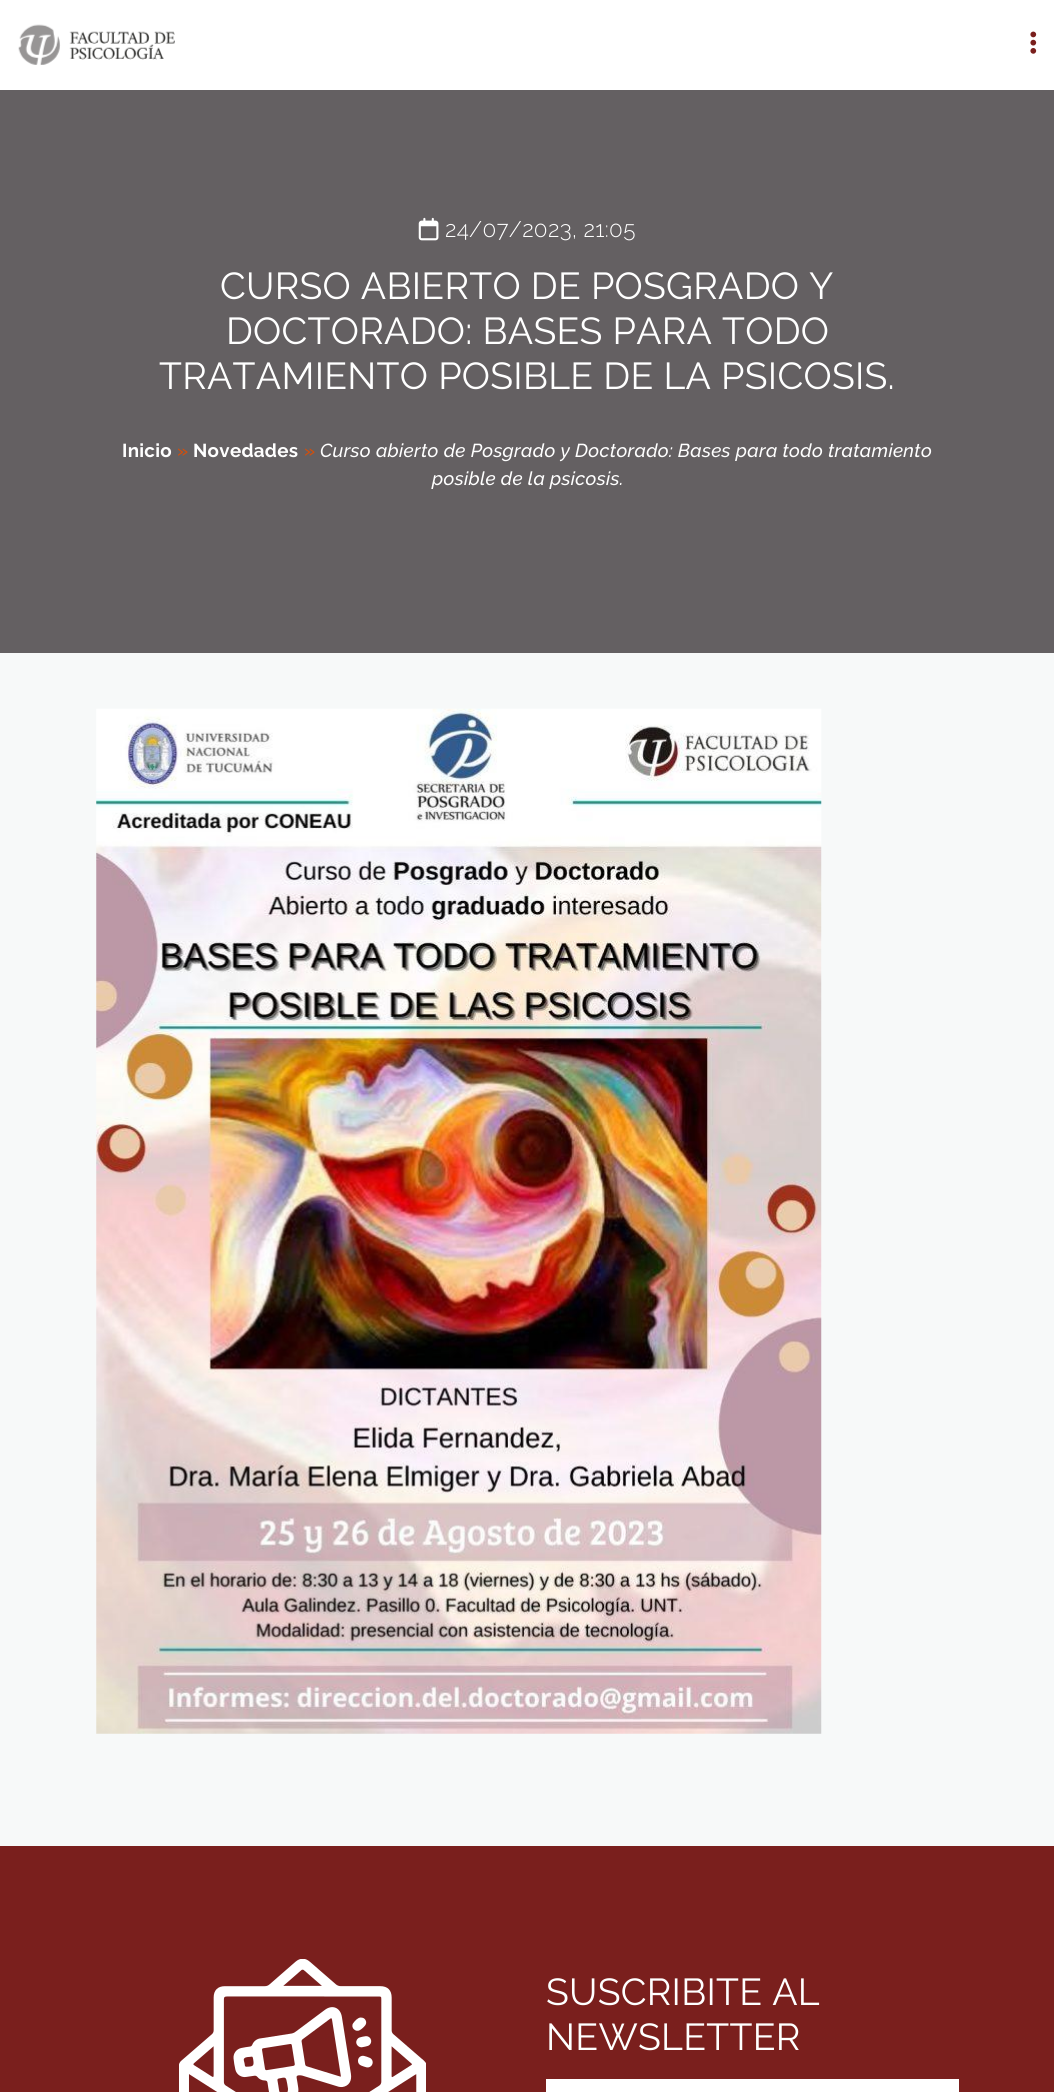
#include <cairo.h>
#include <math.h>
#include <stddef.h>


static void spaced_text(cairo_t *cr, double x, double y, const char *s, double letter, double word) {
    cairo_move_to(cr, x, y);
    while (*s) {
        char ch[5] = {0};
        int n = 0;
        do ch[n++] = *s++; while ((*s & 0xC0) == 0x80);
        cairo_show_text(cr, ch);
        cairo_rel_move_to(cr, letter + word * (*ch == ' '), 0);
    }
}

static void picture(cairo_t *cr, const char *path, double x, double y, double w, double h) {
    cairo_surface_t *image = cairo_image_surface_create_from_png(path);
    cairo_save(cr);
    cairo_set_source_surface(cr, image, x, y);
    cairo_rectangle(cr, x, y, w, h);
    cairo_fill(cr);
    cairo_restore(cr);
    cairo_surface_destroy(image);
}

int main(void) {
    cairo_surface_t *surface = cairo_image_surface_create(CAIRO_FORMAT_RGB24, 1054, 2092);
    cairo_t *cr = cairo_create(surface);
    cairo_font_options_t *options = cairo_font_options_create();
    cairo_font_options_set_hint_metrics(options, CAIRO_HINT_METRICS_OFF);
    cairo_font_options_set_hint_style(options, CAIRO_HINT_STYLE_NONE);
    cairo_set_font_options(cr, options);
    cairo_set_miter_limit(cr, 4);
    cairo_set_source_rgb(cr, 1, 1, 1);
    cairo_paint(cr);
    picture(cr, "img1.png", 18, 24, 157, 41);
    picture(cr, "img2.png", 1030, 31, 7, 23);
    cairo_set_source_rgb(cr, 0.965, 0.973, 0.976);
    cairo_rectangle(cr, 0, 653, 1054, 1193);
    cairo_fill(cr);
    cairo_set_source_rgb(cr, 0.392, 0.376, 0.384);
    cairo_rectangle(cr, 0, 90, 1054, 563);
    cairo_fill(cr);
    picture(cr, "img3.png", 418, 217, 21, 24);
    cairo_select_font_face(cr, "Raleway Light", CAIRO_FONT_SLANT_NORMAL, CAIRO_FONT_WEIGHT_NORMAL);
    cairo_set_font_size(cr, 22.5);
    cairo_set_source_rgb(cr, 1, 1, 1);
    spaced_text(cr, 445, 237, "24/07/2023, 21:05", 0.3, 0);
    cairo_select_font_face(cr, "Raleway", CAIRO_FONT_SLANT_NORMAL, CAIRO_FONT_WEIGHT_NORMAL);
    cairo_set_font_size(cr, 37.5);
    spaced_text(cr, 220, 299, "CURSO ABIERTO DE POSGRADO Y", 0.3, 0);
    spaced_text(cr, 226, 344, "DOCTORADO: BASES PARA TODO", 0.3, 0);
    spaced_text(cr, 159, 389, "TRATAMIENTO POSIBLE DE LA PSICOSIS.", 0.3, 0);
    cairo_select_font_face(cr, "Raleway", CAIRO_FONT_SLANT_NORMAL, CAIRO_FONT_WEIGHT_BOLD);
    cairo_set_font_size(cr, 18.75);
    spaced_text(cr, 122, 457, "Inicio", 0.3, 0);
    cairo_select_font_face(cr, "Raleway Medium", CAIRO_FONT_SLANT_NORMAL, CAIRO_FONT_WEIGHT_NORMAL);
    cairo_set_source_rgb(cr, 0.843, 0.306, 0.035);
    spaced_text(cr, 177, 457, "»", 0.3, 0);
    cairo_select_font_face(cr, "Raleway", CAIRO_FONT_SLANT_NORMAL, CAIRO_FONT_WEIGHT_BOLD);
    cairo_set_source_rgb(cr, 1, 1, 1);
    spaced_text(cr, 193, 457, "Novedades", 0.3, 0);
    cairo_select_font_face(cr, "Raleway Medium", CAIRO_FONT_SLANT_NORMAL, CAIRO_FONT_WEIGHT_NORMAL);
    cairo_set_source_rgb(cr, 0.843, 0.306, 0.035);
    spaced_text(cr, 304, 457, "»", 0.3, 0);
    cairo_select_font_face(cr, "Raleway Medium", CAIRO_FONT_SLANT_ITALIC, CAIRO_FONT_WEIGHT_NORMAL);
    cairo_set_source_rgb(cr, 1, 1, 1);
    spaced_text(cr, 320, 457, "Curso abierto de Posgrado y Doctorado: Bases para todo tratamiento", 0.3, 0);
    spaced_text(cr, 432, 485, "posible de la psicosis.", 0.3, 0);
    picture(cr, "img4.png", 96, 708, 726, 1026);
    cairo_set_source_rgb(cr, 0.478, 0.122, 0.114);
    cairo_rectangle(cr, 0, 1846, 1054, 246);
    cairo_fill(cr);
    picture(cr, "img5.png", 179, 1959, 247, 133);
    cairo_select_font_face(cr, "Raleway", CAIRO_FONT_SLANT_NORMAL, CAIRO_FONT_WEIGHT_NORMAL);
    cairo_set_font_size(cr, 37.5);
    cairo_set_source_rgb(cr, 1, 1, 1);
    spaced_text(cr, 546, 2005, "SUSCRIBITE AL", 0.3, 0);
    spaced_text(cr, 546, 2050, "NEWSLETTER", 0.3, 0);
    cairo_rectangle(cr, 546, 2079, 413, 13);
    cairo_fill(cr);
    cairo_surface_write_to_png(surface, "page.png");
    cairo_font_options_destroy(options);
    cairo_destroy(cr);
    cairo_surface_destroy(surface);
    return 0;
}
